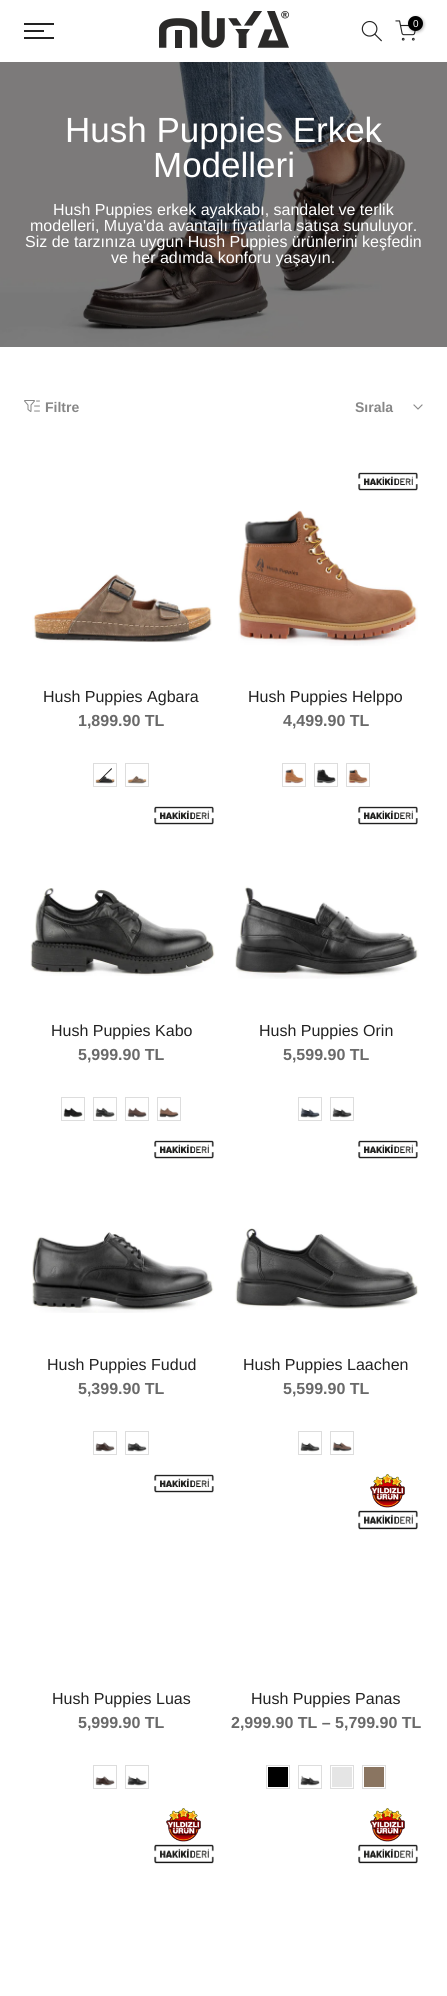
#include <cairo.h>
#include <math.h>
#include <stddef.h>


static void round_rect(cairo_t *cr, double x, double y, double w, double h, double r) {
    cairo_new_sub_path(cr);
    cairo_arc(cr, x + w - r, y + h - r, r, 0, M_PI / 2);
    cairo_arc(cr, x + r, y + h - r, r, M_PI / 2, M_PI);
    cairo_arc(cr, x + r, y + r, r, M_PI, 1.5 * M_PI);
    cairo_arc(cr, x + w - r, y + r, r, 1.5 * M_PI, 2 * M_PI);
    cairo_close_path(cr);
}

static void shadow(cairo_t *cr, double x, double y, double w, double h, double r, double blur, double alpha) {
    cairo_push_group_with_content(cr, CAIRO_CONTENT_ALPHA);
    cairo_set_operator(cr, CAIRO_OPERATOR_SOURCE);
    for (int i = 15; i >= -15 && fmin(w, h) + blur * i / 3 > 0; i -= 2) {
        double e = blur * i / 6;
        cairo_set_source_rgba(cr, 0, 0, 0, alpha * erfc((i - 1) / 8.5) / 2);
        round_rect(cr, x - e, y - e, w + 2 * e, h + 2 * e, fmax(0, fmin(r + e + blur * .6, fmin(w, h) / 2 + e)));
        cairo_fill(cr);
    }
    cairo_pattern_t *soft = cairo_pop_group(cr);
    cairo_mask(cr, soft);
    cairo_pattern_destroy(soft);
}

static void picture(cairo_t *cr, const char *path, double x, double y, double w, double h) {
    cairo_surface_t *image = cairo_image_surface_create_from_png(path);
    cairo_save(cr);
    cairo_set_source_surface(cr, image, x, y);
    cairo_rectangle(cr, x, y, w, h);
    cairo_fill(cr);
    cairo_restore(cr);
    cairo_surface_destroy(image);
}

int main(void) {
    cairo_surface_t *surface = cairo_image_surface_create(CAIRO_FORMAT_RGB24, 447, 1996);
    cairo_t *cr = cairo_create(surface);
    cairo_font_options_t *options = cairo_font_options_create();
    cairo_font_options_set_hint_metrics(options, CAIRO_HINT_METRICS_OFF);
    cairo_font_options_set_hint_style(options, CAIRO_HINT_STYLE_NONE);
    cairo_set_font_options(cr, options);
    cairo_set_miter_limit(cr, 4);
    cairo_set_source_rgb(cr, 1, 1, 1);
    cairo_paint(cr);
    cairo_set_source_rgb(cr, 0.133, 0.133, 0.133);
    cairo_rectangle(cr, 24, 23, 30, 2);
    cairo_fill(cr);
    cairo_rectangle(cr, 24, 30, 20, 2);
    cairo_fill(cr);
    cairo_rectangle(cr, 24, 37, 30, 2);
    cairo_fill(cr);
    picture(cr, "img1.png", 159, 11, 130, 37);
    picture(cr, "img2.png", 361, 20, 21, 22);
    picture(cr, "img3.png", 395, 20, 21, 21);
    cairo_set_source_rgb(cr, 0, 0, 0);
    shadow(cr, 409, 17, 15, 15, 7.5, 1.5, 0.3);
    cairo_set_source_rgb(cr, 0, 0, 0);
    cairo_arc(cr, 415.5, 23.5, 7.5, 0, 2 * M_PI);
    cairo_fill(cr);
    cairo_select_font_face(cr, "Liberation Sans", CAIRO_FONT_SLANT_NORMAL, CAIRO_FONT_WEIGHT_NORMAL);
    cairo_set_font_size(cr, 10);
    cairo_set_source_rgb(cr, 1, 1, 1);
    cairo_move_to(cr, 413, 27);
    cairo_show_text(cr, "0");
    picture(cr, "img4.png", 0, 62, 447, 285);
    cairo_set_font_size(cr, 35);
    cairo_move_to(cr, 65, 142);
    cairo_show_text(cr, "Hush Puppies Erkek");
    cairo_move_to(cr, 153, 177);
    cairo_show_text(cr, "Modelleri");
    cairo_set_font_size(cr, 16);
    cairo_move_to(cr, 53, 215);
    cairo_show_text(cr, "Hush Puppies erkek ayakkabı, sandalet ve terlik");
    cairo_move_to(cr, 30, 231);
    cairo_show_text(cr, "modelleri, Muya'da avantajlı fiyatlarla satışa sunuluyor.");
    cairo_move_to(cr, 25, 247);
    cairo_show_text(cr, "Siz de tarzınıza uygun Hush Puppies ürünlerini keşfedin");
    cairo_move_to(cr, 111, 263);
    cairo_show_text(cr, "ve her adımda konforu yaşayın.");
    picture(cr, "img5.png", 24, 400, 16, 12);
    cairo_select_font_face(cr, "Liberation Sans", CAIRO_FONT_SLANT_NORMAL, CAIRO_FONT_WEIGHT_BOLD);
    cairo_set_font_size(cr, 14);
    cairo_set_source_rgb(cr, 0.529, 0.529, 0.529);
    cairo_move_to(cr, 45, 412);
    cairo_show_text(cr, "Filtre");
    cairo_move_to(cr, 355, 412);
    cairo_show_text(cr, "Sırala");
    cairo_new_path(cr);
    cairo_move_to(cr, 422, 405);
    cairo_line_to(cr, 418, 409);
    cairo_line_to(cr, 414, 405);
    cairo_set_line_width(cr, 1.1);
    cairo_set_line_cap(cr, CAIRO_LINE_CAP_SQUARE);
    cairo_stroke(cr);
    picture(cr, "img6.png", 32, 574, 180, 69);
    cairo_select_font_face(cr, "Liberation Sans", CAIRO_FONT_SLANT_NORMAL, CAIRO_FONT_WEIGHT_NORMAL);
    cairo_set_font_size(cr, 16);
    cairo_set_source_rgb(cr, 0.133, 0.133, 0.133);
    cairo_move_to(cr, 43, 702);
    cairo_show_text(cr, "Hush Puppies Agbara");
    cairo_select_font_face(cr, "Liberation Sans", CAIRO_FONT_SLANT_NORMAL, CAIRO_FONT_WEIGHT_BOLD);
    cairo_set_source_rgb(cr, 0.412, 0.412, 0.412);
    cairo_move_to(cr, 78, 726);
    cairo_show_text(cr, "1,899.90 TL");
    cairo_rectangle(cr, 93.5, 763.5, 23, 23);
    cairo_set_source_rgb(cr, 0.867, 0.867, 0.867);
    cairo_set_line_width(cr, 1);
    cairo_set_line_cap(cr, CAIRO_LINE_CAP_BUTT);
    cairo_stroke(cr);
    picture(cr, "img7.png", 95, 765, 20, 20);
    cairo_set_source_rgb(cr, 0.133, 0.133, 0.133);
    cairo_new_path(cr);
    cairo_move_to(cr, 112, 769);
    cairo_line_to(cr, 99, 781.5);
    cairo_line_to(cr, 98.5, 781);
    cairo_line_to(cr, 111.5, 768);
    cairo_close_path(cr);
    cairo_fill(cr);
    cairo_rectangle(cr, 125.5, 763.5, 23, 23);
    cairo_set_source_rgb(cr, 0.867, 0.867, 0.867);
    cairo_stroke(cr);
    picture(cr, "img8.png", 127, 765, 20, 20);
    picture(cr, "img9.png", 358, 472, 60, 19);
    picture(cr, "img10.png", 238, 510, 180, 136);
    cairo_select_font_face(cr, "Liberation Sans", CAIRO_FONT_SLANT_NORMAL, CAIRO_FONT_WEIGHT_NORMAL);
    cairo_set_source_rgb(cr, 0.133, 0.133, 0.133);
    cairo_move_to(cr, 248, 702);
    cairo_show_text(cr, "Hush Puppies Helppo");
    cairo_select_font_face(cr, "Liberation Sans", CAIRO_FONT_SLANT_NORMAL, CAIRO_FONT_WEIGHT_BOLD);
    cairo_set_source_rgb(cr, 0.412, 0.412, 0.412);
    cairo_move_to(cr, 283, 726);
    cairo_show_text(cr, "4,499.90 TL");
    cairo_rectangle(cr, 282.5, 763.5, 23, 23);
    cairo_set_source_rgb(cr, 0.867, 0.867, 0.867);
    cairo_stroke(cr);
    picture(cr, "img11.png", 284, 765, 20, 20);
    cairo_rectangle(cr, 314.5, 763.5, 23, 23);
    cairo_stroke(cr);
    picture(cr, "img12.png", 316, 765, 20, 20);
    cairo_rectangle(cr, 346.5, 763.5, 23, 23);
    cairo_stroke(cr);
    picture(cr, "img13.png", 348, 765, 20, 20);
    picture(cr, "img9.png", 154, 806, 60, 19);
    picture(cr, "img14.png", 30, 888, 185, 88);
    cairo_select_font_face(cr, "Liberation Sans", CAIRO_FONT_SLANT_NORMAL, CAIRO_FONT_WEIGHT_NORMAL);
    cairo_set_source_rgb(cr, 0.133, 0.133, 0.133);
    cairo_move_to(cr, 51, 1036);
    cairo_show_text(cr, "Hush Puppies Kabo");
    cairo_select_font_face(cr, "Liberation Sans", CAIRO_FONT_SLANT_NORMAL, CAIRO_FONT_WEIGHT_BOLD);
    cairo_set_source_rgb(cr, 0.412, 0.412, 0.412);
    cairo_move_to(cr, 78, 1060);
    cairo_show_text(cr, "5,999.90 TL");
    cairo_rectangle(cr, 61.5, 1097.5, 23, 23);
    cairo_set_source_rgb(cr, 0.867, 0.867, 0.867);
    cairo_stroke(cr);
    picture(cr, "img15.png", 63, 1099, 20, 20);
    cairo_rectangle(cr, 93.5, 1097.5, 23, 23);
    cairo_stroke(cr);
    picture(cr, "img16.png", 95, 1099, 20, 20);
    cairo_rectangle(cr, 125.5, 1097.5, 23, 23);
    cairo_stroke(cr);
    picture(cr, "img17.png", 127, 1099, 20, 20);
    cairo_rectangle(cr, 157.5, 1097.5, 23, 23);
    cairo_stroke(cr);
    picture(cr, "img18.png", 159, 1099, 20, 20);
    picture(cr, "img9.png", 358, 806, 60, 19);
    picture(cr, "img19.png", 235, 886, 184, 93);
    cairo_select_font_face(cr, "Liberation Sans", CAIRO_FONT_SLANT_NORMAL, CAIRO_FONT_WEIGHT_NORMAL);
    cairo_set_source_rgb(cr, 0.133, 0.133, 0.133);
    cairo_move_to(cr, 259, 1036);
    cairo_show_text(cr, "Hush Puppies Orin");
    cairo_select_font_face(cr, "Liberation Sans", CAIRO_FONT_SLANT_NORMAL, CAIRO_FONT_WEIGHT_BOLD);
    cairo_set_source_rgb(cr, 0.412, 0.412, 0.412);
    cairo_move_to(cr, 283, 1060);
    cairo_show_text(cr, "5,599.90 TL");
    cairo_rectangle(cr, 298.5, 1097.5, 23, 23);
    cairo_set_source_rgb(cr, 0.867, 0.867, 0.867);
    cairo_stroke(cr);
    picture(cr, "img20.png", 300, 1099, 20, 20);
    cairo_rectangle(cr, 330.5, 1097.5, 23, 23);
    cairo_stroke(cr);
    picture(cr, "img21.png", 332, 1099, 20, 20);
    picture(cr, "img9.png", 154, 1140, 60, 19);
    picture(cr, "img22.png", 32, 1232, 182, 81);
    cairo_select_font_face(cr, "Liberation Sans", CAIRO_FONT_SLANT_NORMAL, CAIRO_FONT_WEIGHT_NORMAL);
    cairo_set_source_rgb(cr, 0.133, 0.133, 0.133);
    cairo_move_to(cr, 47, 1370);
    cairo_show_text(cr, "Hush Puppies Fudud");
    cairo_select_font_face(cr, "Liberation Sans", CAIRO_FONT_SLANT_NORMAL, CAIRO_FONT_WEIGHT_BOLD);
    cairo_set_source_rgb(cr, 0.412, 0.412, 0.412);
    cairo_move_to(cr, 78, 1394);
    cairo_show_text(cr, "5,399.90 TL");
    cairo_rectangle(cr, 93.5, 1431.5, 23, 23);
    cairo_set_source_rgb(cr, 0.867, 0.867, 0.867);
    cairo_stroke(cr);
    picture(cr, "img23.png", 95, 1433, 20, 20);
    cairo_rectangle(cr, 125.5, 1431.5, 23, 23);
    cairo_stroke(cr);
    picture(cr, "img24.png", 127, 1433, 20, 20);
    picture(cr, "img9.png", 358, 1140, 60, 19);
    picture(cr, "img25.png", 235, 1228, 184, 82);
    cairo_select_font_face(cr, "Liberation Sans", CAIRO_FONT_SLANT_NORMAL, CAIRO_FONT_WEIGHT_NORMAL);
    cairo_set_source_rgb(cr, 0.133, 0.133, 0.133);
    cairo_move_to(cr, 243, 1370);
    cairo_show_text(cr, "Hush Puppies Laachen");
    cairo_select_font_face(cr, "Liberation Sans", CAIRO_FONT_SLANT_NORMAL, CAIRO_FONT_WEIGHT_BOLD);
    cairo_set_source_rgb(cr, 0.412, 0.412, 0.412);
    cairo_move_to(cr, 283, 1394);
    cairo_show_text(cr, "5,599.90 TL");
    cairo_rectangle(cr, 298.5, 1431.5, 23, 23);
    cairo_set_source_rgb(cr, 0.867, 0.867, 0.867);
    cairo_stroke(cr);
    picture(cr, "img26.png", 300, 1433, 20, 20);
    cairo_rectangle(cr, 330.5, 1431.5, 23, 23);
    cairo_stroke(cr);
    picture(cr, "img27.png", 332, 1433, 20, 20);
    picture(cr, "img9.png", 154, 1474, 60, 19);
    cairo_select_font_face(cr, "Liberation Sans", CAIRO_FONT_SLANT_NORMAL, CAIRO_FONT_WEIGHT_NORMAL);
    cairo_set_source_rgb(cr, 0.133, 0.133, 0.133);
    cairo_move_to(cr, 52, 1704);
    cairo_show_text(cr, "Hush Puppies Luas");
    cairo_select_font_face(cr, "Liberation Sans", CAIRO_FONT_SLANT_NORMAL, CAIRO_FONT_WEIGHT_BOLD);
    cairo_set_source_rgb(cr, 0.412, 0.412, 0.412);
    cairo_move_to(cr, 78, 1728);
    cairo_show_text(cr, "5,999.90 TL");
    cairo_rectangle(cr, 93.5, 1765.5, 23, 23);
    cairo_set_source_rgb(cr, 0.867, 0.867, 0.867);
    cairo_stroke(cr);
    picture(cr, "img23.png", 95, 1767, 20, 20);
    cairo_rectangle(cr, 125.5, 1765.5, 23, 23);
    cairo_stroke(cr);
    picture(cr, "img21.png", 127, 1767, 20, 20);
    picture(cr, "img28.png", 370, 1474, 35, 34);
    picture(cr, "img29.png", 358, 1510, 60, 20);
    cairo_select_font_face(cr, "Liberation Sans", CAIRO_FONT_SLANT_NORMAL, CAIRO_FONT_WEIGHT_NORMAL);
    cairo_set_source_rgb(cr, 0.133, 0.133, 0.133);
    cairo_move_to(cr, 251, 1704);
    cairo_show_text(cr, "Hush Puppies Panas");
    cairo_select_font_face(cr, "Liberation Sans", CAIRO_FONT_SLANT_NORMAL, CAIRO_FONT_WEIGHT_BOLD);
    cairo_set_source_rgb(cr, 0.412, 0.412, 0.412);
    cairo_move_to(cr, 231, 1728);
    cairo_show_text(cr, "2,999.90 TL – 5,799.90 TL");
    cairo_rectangle(cr, 266.5, 1765.5, 23, 23);
    cairo_set_source_rgb(cr, 0.867, 0.867, 0.867);
    cairo_stroke(cr);
    cairo_set_source_rgb(cr, 0, 0, 0);
    cairo_rectangle(cr, 268, 1767, 20, 20);
    cairo_fill(cr);
    cairo_rectangle(cr, 298.5, 1765.5, 23, 23);
    cairo_set_source_rgb(cr, 0.867, 0.867, 0.867);
    cairo_stroke(cr);
    picture(cr, "img21.png", 300, 1767, 20, 20);
    cairo_rectangle(cr, 330.5, 1765.5, 23, 23);
    cairo_stroke(cr);
    cairo_set_source_rgb(cr, 0.898, 0.898, 0.898);
    cairo_rectangle(cr, 332, 1767, 20, 20);
    cairo_fill(cr);
    cairo_rectangle(cr, 362.5, 1765.5, 23, 23);
    cairo_set_source_rgb(cr, 0.867, 0.867, 0.867);
    cairo_stroke(cr);
    cairo_set_source_rgb(cr, 0.541, 0.459, 0.38);
    cairo_rectangle(cr, 364, 1767, 20, 20);
    cairo_fill(cr);
    picture(cr, "img28.png", 166, 1808, 35, 34);
    picture(cr, "img29.png", 154, 1844, 60, 20);
    picture(cr, "img28.png", 370, 1808, 35, 34);
    picture(cr, "img29.png", 358, 1844, 60, 20);
    cairo_surface_write_to_png(surface, "page.png");
    cairo_font_options_destroy(options);
    cairo_destroy(cr);
    cairo_surface_destroy(surface);
    return 0;
}
